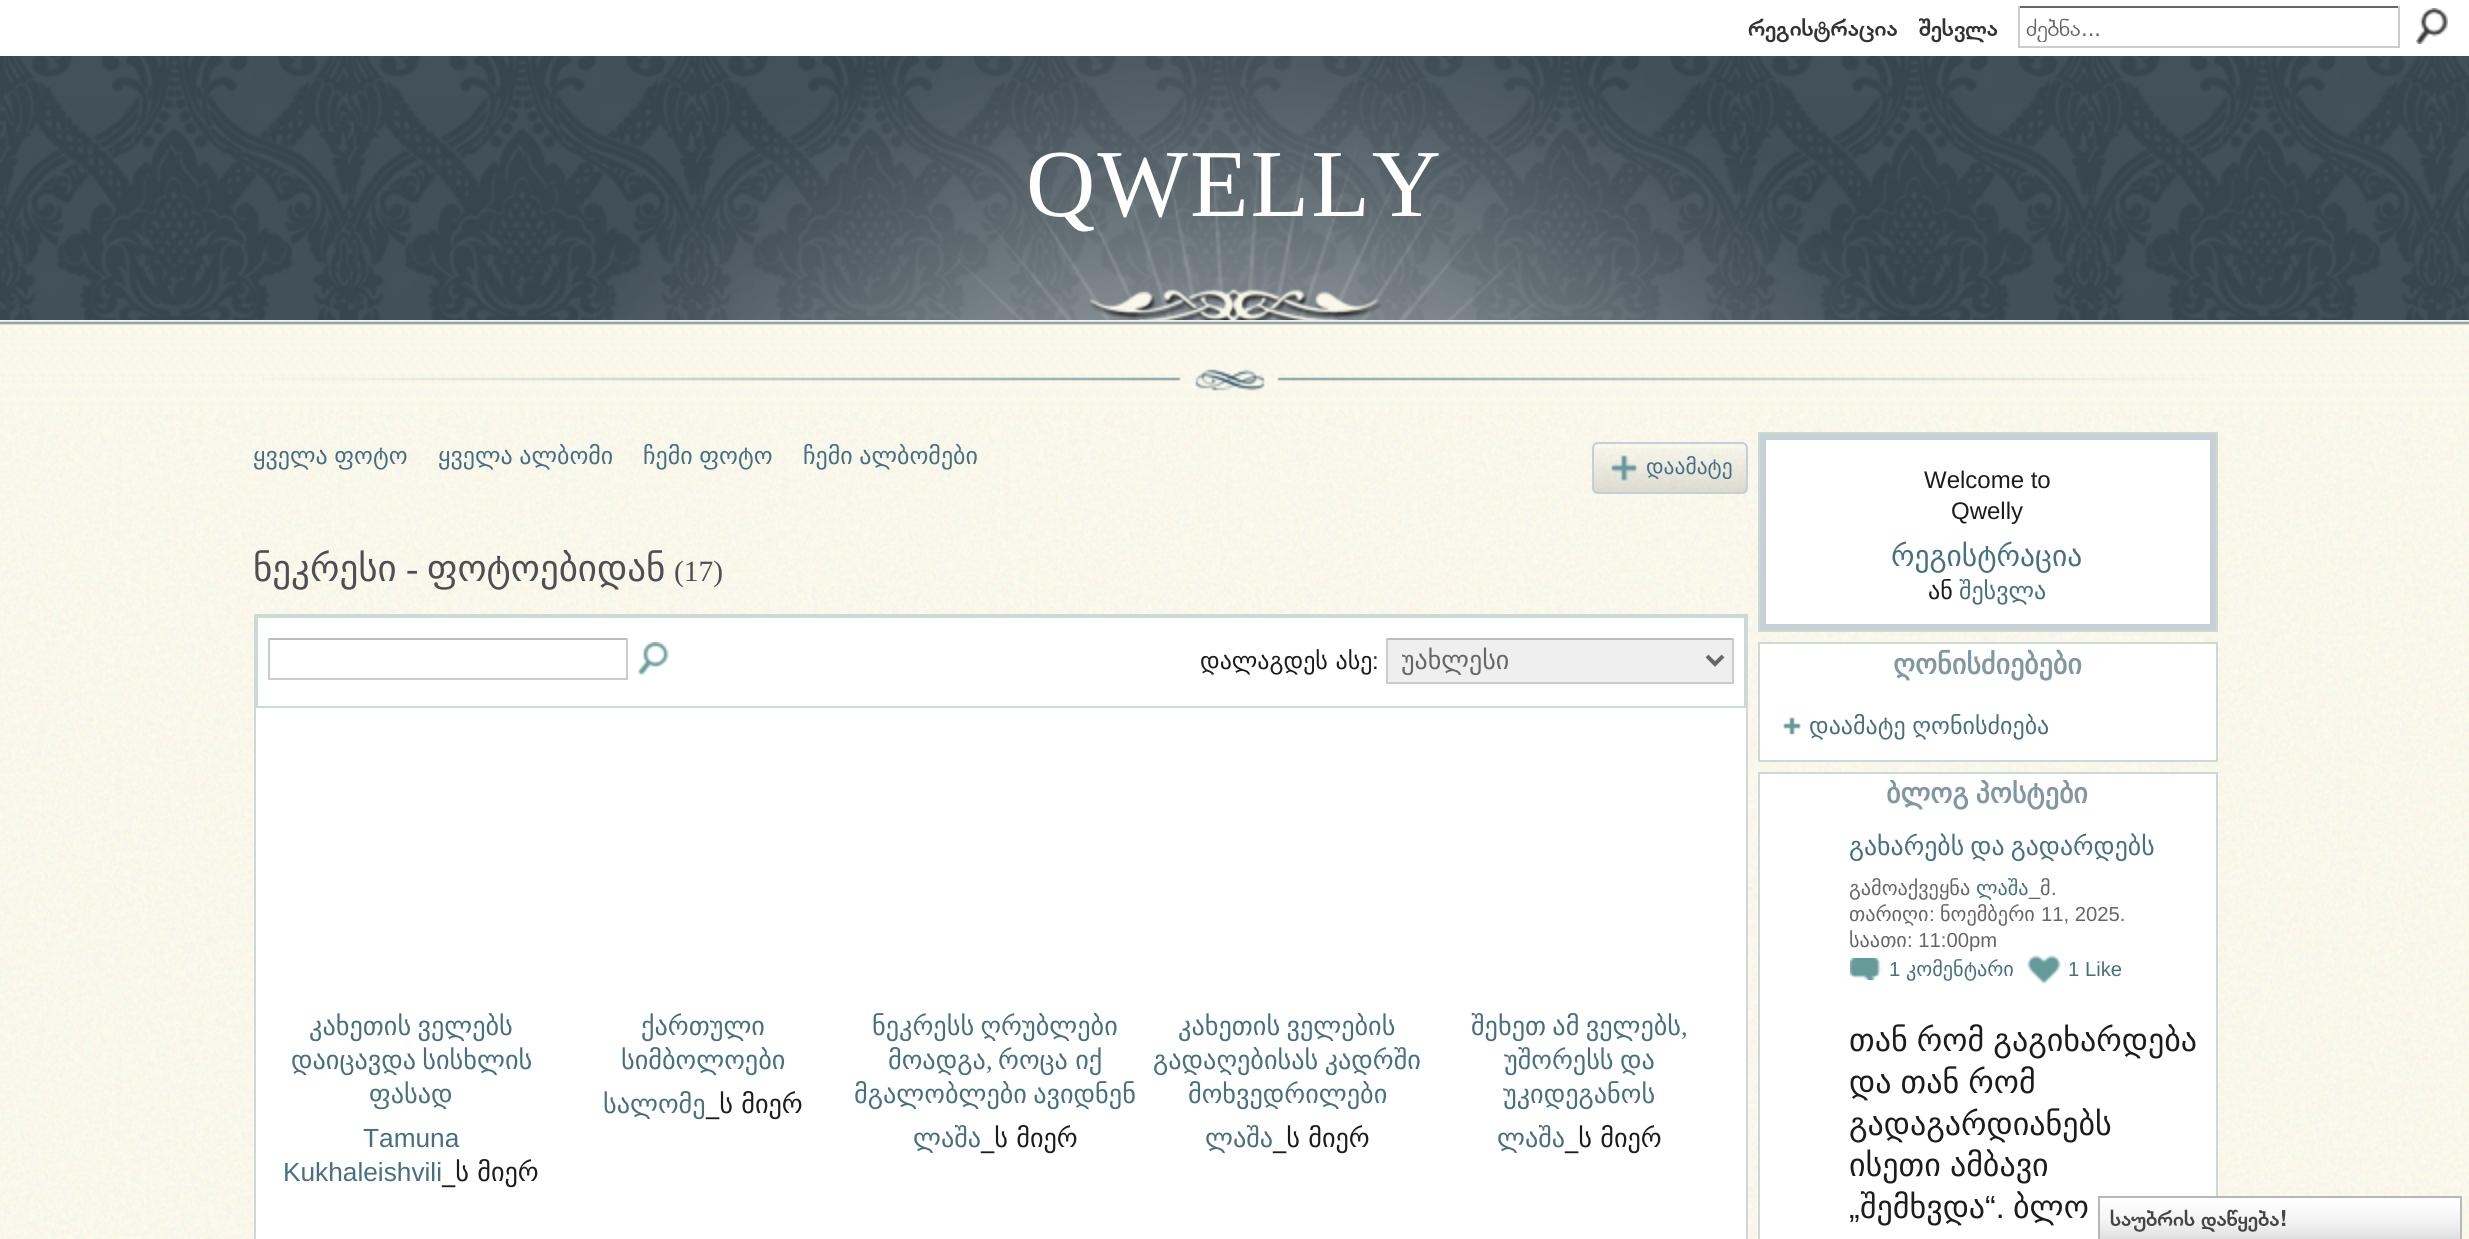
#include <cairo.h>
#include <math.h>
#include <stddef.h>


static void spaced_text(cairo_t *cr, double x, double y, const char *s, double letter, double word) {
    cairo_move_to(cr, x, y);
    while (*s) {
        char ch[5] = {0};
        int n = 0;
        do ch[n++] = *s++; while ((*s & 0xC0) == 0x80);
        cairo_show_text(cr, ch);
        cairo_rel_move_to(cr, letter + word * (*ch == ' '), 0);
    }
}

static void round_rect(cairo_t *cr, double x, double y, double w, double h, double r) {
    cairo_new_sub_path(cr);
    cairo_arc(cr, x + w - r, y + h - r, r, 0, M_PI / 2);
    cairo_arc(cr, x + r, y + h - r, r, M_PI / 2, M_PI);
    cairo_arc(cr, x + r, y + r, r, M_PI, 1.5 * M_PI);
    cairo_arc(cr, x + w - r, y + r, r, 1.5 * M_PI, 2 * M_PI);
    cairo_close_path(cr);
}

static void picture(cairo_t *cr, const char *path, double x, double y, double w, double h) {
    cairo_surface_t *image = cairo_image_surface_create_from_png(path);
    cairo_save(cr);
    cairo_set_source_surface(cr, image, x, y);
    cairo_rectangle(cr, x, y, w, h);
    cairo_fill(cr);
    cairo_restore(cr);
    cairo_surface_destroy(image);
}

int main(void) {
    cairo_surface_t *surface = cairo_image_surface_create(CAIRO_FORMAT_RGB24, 2469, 1239);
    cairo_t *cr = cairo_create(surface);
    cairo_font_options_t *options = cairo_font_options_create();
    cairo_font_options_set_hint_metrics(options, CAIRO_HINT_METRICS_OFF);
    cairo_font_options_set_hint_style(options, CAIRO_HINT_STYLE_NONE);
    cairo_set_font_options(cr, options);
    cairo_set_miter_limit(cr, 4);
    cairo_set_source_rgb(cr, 0.259, 0.322, 0.361);
    cairo_paint(cr);
    picture(cr, "img1.png", 0, 56, 2469, 264);
    cairo_set_source_rgb(cr, 1, 1, 1);
    cairo_rectangle(cr, 0, 0, 2469, 56);
    cairo_fill(cr);
    cairo_select_font_face(cr, "FreeSans SemiBold", CAIRO_FONT_SLANT_NORMAL, CAIRO_FONT_WEIGHT_NORMAL);
    cairo_set_font_size(cr, 24);
    cairo_set_source_rgb(cr, 0.2, 0.2, 0.2);
    cairo_move_to(cr, 1748, 36);
    cairo_show_text(cr, "რეგისტრაცია");
    cairo_move_to(cr, 1919, 36);
    cairo_show_text(cr, "შესვლა");
    cairo_set_source_rgb(cr, 0.4, 0.4, 0.4);
    cairo_rectangle(cr, 2018, 6, 382, 2);
    cairo_fill(cr);
    cairo_set_source_rgb(cr, 0.8, 0.8, 0.8);
    cairo_rectangle(cr, 2398, 6, 2, 42);
    cairo_fill(cr);
    cairo_rectangle(cr, 2018, 46, 382, 2);
    cairo_fill(cr);
    cairo_rectangle(cr, 2018, 6, 2, 42);
    cairo_fill(cr);
    cairo_save(cr);
    cairo_rectangle(cr, 2026, 14, 366, 28);
    cairo_clip(cr);
    cairo_select_font_face(cr, "FreeSans", CAIRO_FONT_SLANT_NORMAL, CAIRO_FONT_WEIGHT_NORMAL);
    cairo_set_source_rgb(cr, 0.4, 0.4, 0.4);
    cairo_move_to(cr, 2026, 36);
    cairo_show_text(cr, "ძებნა");
    cairo_restore(cr);
    cairo_select_font_face(cr, "Liberation Sans", CAIRO_FONT_SLANT_NORMAL, CAIRO_FONT_WEIGHT_NORMAL);
    cairo_set_source_rgb(cr, 0.4, 0.4, 0.4);
    cairo_move_to(cr, 2081, 36);
    cairo_show_text(cr, "...");
    picture(cr, "img2.png", 2416, 8, 32, 36);
    picture(cr, "img3.png", 593, 56, 1284, 264);
    picture(cr, "img4.png", 1090, 288, 291, 32);
    cairo_select_font_face(cr, "Liberation Serif", CAIRO_FONT_SLANT_NORMAL, CAIRO_FONT_WEIGHT_NORMAL);
    cairo_set_font_size(cr, 96);
    cairo_set_source_rgb(cr, 1, 1, 1);
    spaced_text(cr, 1026, 216, "QWELLY", 2, 0);
    picture(cr, "img5.png", 0, 320, 2469, 92);
    picture(cr, "img6.png", 262, 369, 1948, 22);
    picture(cr, "img7.png", 0, 412, 2469, 827);
    cairo_select_font_face(cr, "DejaVu Sans", CAIRO_FONT_SLANT_NORMAL, CAIRO_FONT_WEIGHT_NORMAL);
    cairo_set_font_size(cr, 24);
    cairo_set_source_rgb(cr, 0.275, 0.439, 0.51);
    spaced_text(cr, 253, 464, "ყველა ფოტო", 0, -1);
    spaced_text(cr, 438, 464, "ყველა ალბომი", 0, -1);
    spaced_text(cr, 643, 464, "ჩემი ფოტო", 0, -1);
    spaced_text(cr, 803, 464, "ჩემი ალბომები", 0, -1);
    picture(cr, "img8.png", 1592, 448, 156, 46);
    round_rect(cr, 1593, 443, 154, 50, 5);
    cairo_set_source_rgb(cr, 0.769, 0.816, 0.835);
    cairo_stroke(cr);
    picture(cr, "img9.png", 1611, 455, 26, 26);
    cairo_set_font_size(cr, 21.5);
    cairo_set_source_rgb(cr, 0.275, 0.439, 0.51);
    cairo_move_to(cr, 1646, 474);
    cairo_show_text(cr, "დაამატე");
    cairo_set_font_size(cr, 37);
    cairo_set_source_rgb(cr, 0.306, 0.306, 0.329);
    cairo_move_to(cr, 253, 581);
    cairo_show_text(cr, "ნეკრესი");
    cairo_select_font_face(cr, "Liberation Serif", CAIRO_FONT_SLANT_NORMAL, CAIRO_FONT_WEIGHT_NORMAL);
    cairo_move_to(cr, 406, 581);
    cairo_show_text(cr, "-");
    cairo_select_font_face(cr, "DejaVu Sans", CAIRO_FONT_SLANT_NORMAL, CAIRO_FONT_WEIGHT_NORMAL);
    cairo_move_to(cr, 427, 581);
    cairo_show_text(cr, "ფოტოებიდან");
    cairo_select_font_face(cr, "Liberation Serif", CAIRO_FONT_SLANT_NORMAL, CAIRO_FONT_WEIGHT_NORMAL);
    cairo_set_font_size(cr, 29.5);
    cairo_move_to(cr, 674, 581);
    cairo_show_text(cr, "(17)");
    cairo_set_source_rgb(cr, 1, 1, 1);
    cairo_rectangle(cr, 256, 618, 1490, 621);
    cairo_fill(cr);
    cairo_rectangle(cr, 255, 615, 1492, 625);
    cairo_set_source_rgb(cr, 0.804, 0.851, 0.827);
    cairo_stroke(cr);
    cairo_rectangle(cr, 257, 617, 1488, 90);
    cairo_stroke(cr);
    cairo_set_source_rgb(cr, 0.733, 0.733, 0.733);
    cairo_rectangle(cr, 268, 638, 360, 2);
    cairo_fill(cr);
    cairo_set_source_rgb(cr, 0.8, 0.8, 0.8);
    cairo_rectangle(cr, 626, 638, 2, 42);
    cairo_fill(cr);
    cairo_rectangle(cr, 268, 678, 360, 2);
    cairo_fill(cr);
    cairo_rectangle(cr, 268, 638, 2, 42);
    cairo_fill(cr);
    picture(cr, "img10.png", 638, 642, 31, 33);
    cairo_select_font_face(cr, "DejaVu Sans", CAIRO_FONT_SLANT_NORMAL, CAIRO_FONT_WEIGHT_NORMAL);
    cairo_set_font_size(cr, 24);
    cairo_set_source_rgb(cr, 0.11, 0.11, 0.122);
    cairo_move_to(cr, 1200, 669);
    cairo_show_text(cr, "დალაგდეს ასე");
    cairo_select_font_face(cr, "Liberation Sans", CAIRO_FONT_SLANT_NORMAL, CAIRO_FONT_WEIGHT_NORMAL);
    cairo_move_to(cr, 1372, 669);
    cairo_show_text(cr, ":");
    cairo_set_source_rgb(cr, 0.937, 0.937, 0.937);
    cairo_rectangle(cr, 1388, 640, 344, 42);
    cairo_fill(cr);
    cairo_set_source_rgb(cr, 0.733, 0.733, 0.733);
    cairo_rectangle(cr, 1386, 638, 348, 2);
    cairo_fill(cr);
    cairo_set_source_rgb(cr, 0.8, 0.8, 0.8);
    cairo_rectangle(cr, 1732, 638, 2, 46);
    cairo_fill(cr);
    cairo_rectangle(cr, 1386, 682, 348, 2);
    cairo_fill(cr);
    cairo_rectangle(cr, 1386, 638, 2, 46);
    cairo_fill(cr);
    cairo_new_path(cr);
    cairo_move_to(cr, 1707, 656);
    cairo_line_to(cr, 1715, 664);
    cairo_line_to(cr, 1723, 656);
    cairo_set_source_rgb(cr, 0.4, 0.4, 0.4);
    cairo_set_line_width(cr, 4);
    cairo_stroke(cr);
    cairo_save(cr);
    cairo_rectangle(cr, 1402, 644, 292, 34);
    cairo_clip(cr);
    cairo_select_font_face(cr, "DejaVu Sans", CAIRO_FONT_SLANT_NORMAL, CAIRO_FONT_WEIGHT_NORMAL);
    cairo_set_font_size(cr, 26);
    cairo_move_to(cr, 1401, 669);
    cairo_show_text(cr, "უახლესი");
    cairo_restore(cr);
    cairo_select_font_face(cr, "DejaVu Sans", CAIRO_FONT_SLANT_NORMAL, CAIRO_FONT_WEIGHT_NORMAL);
    cairo_set_font_size(cr, 26.25);
    cairo_set_source_rgb(cr, 0.275, 0.439, 0.51);
    spaced_text(cr, 309, 1035, "კახეთის ველებს", 0, -2);
    spaced_text(cr, 291, 1069, "დაიცავდა სისხლის", 0, -2);
    cairo_move_to(cr, 369, 1103);
    cairo_show_text(cr, "ფასად");
    cairo_select_font_face(cr, "Liberation Sans", CAIRO_FONT_SLANT_NORMAL, CAIRO_FONT_WEIGHT_NORMAL);
    cairo_move_to(cr, 363, 1147);
    cairo_show_text(cr, "Tamuna");
    cairo_move_to(cr, 283, 1181);
    cairo_show_text(cr, "Kukhaleishvili");
    cairo_select_font_face(cr, "DejaVu Sans", CAIRO_FONT_SLANT_NORMAL, CAIRO_FONT_WEIGHT_NORMAL);
    cairo_set_source_rgb(cr, 0.11, 0.11, 0.122);
    cairo_move_to(cr, 442, 1181);
    cairo_show_text(cr, "_ს მიერ");
    cairo_set_source_rgb(cr, 0.275, 0.439, 0.51);
    cairo_move_to(cr, 641, 1035);
    cairo_show_text(cr, "ქართული");
    cairo_move_to(cr, 621, 1069);
    cairo_show_text(cr, "სიმბოლოები");
    cairo_move_to(cr, 603, 1113);
    cairo_show_text(cr, "სალომე");
    cairo_set_source_rgb(cr, 0.11, 0.11, 0.122);
    cairo_move_to(cr, 706, 1113);
    cairo_show_text(cr, "_ს მიერ");
    cairo_set_source_rgb(cr, 0.275, 0.439, 0.51);
    spaced_text(cr, 872, 1035, "ნეკრესს ღრუბლები", 0, -2);
    cairo_move_to(cr, 888, 1069);
    cairo_show_text(cr, "მოადგა");
    cairo_select_font_face(cr, "Liberation Serif", CAIRO_FONT_SLANT_NORMAL, CAIRO_FONT_WEIGHT_NORMAL);
    cairo_move_to(cr, 986, 1069);
    cairo_show_text(cr, ",");
    cairo_select_font_face(cr, "DejaVu Sans", CAIRO_FONT_SLANT_NORMAL, CAIRO_FONT_WEIGHT_NORMAL);
    spaced_text(cr, 998, 1069, "როცა იქ", 0, -1);
    spaced_text(cr, 854, 1103, "მგალობლები ავიდნენ", 0, -2);
    cairo_move_to(cr, 913, 1147);
    cairo_show_text(cr, "ლაშა");
    cairo_set_source_rgb(cr, 0.11, 0.11, 0.122);
    cairo_move_to(cr, 981, 1147);
    cairo_show_text(cr, "_ს მიერ");
    cairo_set_source_rgb(cr, 0.275, 0.439, 0.51);
    spaced_text(cr, 1178, 1035, "კახეთის ველების", 0, -2);
    spaced_text(cr, 1153, 1069, "გადაღებისას კადრში", 0, -2);
    cairo_move_to(cr, 1188, 1103);
    cairo_show_text(cr, "მოხვედრილები");
    cairo_move_to(cr, 1205, 1147);
    cairo_show_text(cr, "ლაშა");
    cairo_set_source_rgb(cr, 0.11, 0.11, 0.122);
    cairo_move_to(cr, 1273, 1147);
    cairo_show_text(cr, "_ს მიერ");
    cairo_set_source_rgb(cr, 0.275, 0.439, 0.51);
    spaced_text(cr, 1471, 1035, "შეხეთ ამ ველებს", 0, -2);
    cairo_select_font_face(cr, "Liberation Serif", CAIRO_FONT_SLANT_NORMAL, CAIRO_FONT_WEIGHT_NORMAL);
    cairo_move_to(cr, 1681, 1035);
    cairo_show_text(cr, ",");
    cairo_select_font_face(cr, "DejaVu Sans", CAIRO_FONT_SLANT_NORMAL, CAIRO_FONT_WEIGHT_NORMAL);
    spaced_text(cr, 1504, 1069, "უშორესს და", 0, -2);
    cairo_move_to(cr, 1503, 1103);
    cairo_show_text(cr, "უკიდეგანოს");
    cairo_move_to(cr, 1497, 1147);
    cairo_show_text(cr, "ლაშა");
    cairo_set_source_rgb(cr, 0.11, 0.11, 0.122);
    cairo_move_to(cr, 1565, 1147);
    cairo_show_text(cr, "_ს მიერ");
    cairo_set_source_rgb(cr, 1, 1, 1);
    cairo_rectangle(cr, 1766, 440, 444, 184);
    cairo_fill(cr);
    cairo_rectangle(cr, 1759, 433, 458, 198);
    cairo_set_source_rgb(cr, 0.804, 0.851, 0.827);
    cairo_set_line_width(cr, 2);
    cairo_stroke(cr);
    cairo_rectangle(cr, 1763, 437, 450, 190);
    cairo_set_source_rgb(cr, 0.769, 0.816, 0.835);
    cairo_set_line_width(cr, 6);
    cairo_stroke(cr);
    cairo_select_font_face(cr, "Liberation Sans", CAIRO_FONT_SLANT_NORMAL, CAIRO_FONT_WEIGHT_NORMAL);
    cairo_set_font_size(cr, 24);
    cairo_set_source_rgb(cr, 0.11, 0.11, 0.122);
    cairo_move_to(cr, 1924, 488);
    cairo_show_text(cr, "Welcome to");
    cairo_move_to(cr, 1951, 519);
    cairo_show_text(cr, "Qwelly");
    cairo_select_font_face(cr, "DejaVu Sans", CAIRO_FONT_SLANT_NORMAL, CAIRO_FONT_WEIGHT_NORMAL);
    cairo_set_font_size(cr, 29.5);
    cairo_set_source_rgb(cr, 0.275, 0.439, 0.51);
    cairo_move_to(cr, 1891, 566);
    cairo_show_text(cr, "რეგისტრაცია");
    cairo_set_font_size(cr, 24);
    cairo_set_source_rgb(cr, 0.11, 0.11, 0.122);
    cairo_move_to(cr, 1928, 599);
    cairo_show_text(cr, "ან");
    cairo_set_source_rgb(cr, 0.275, 0.439, 0.51);
    cairo_move_to(cr, 1959, 599);
    cairo_show_text(cr, "შესვლა");
    cairo_set_source_rgb(cr, 1, 1, 1);
    cairo_rectangle(cr, 1759, 643, 458, 118);
    cairo_fill_preserve(cr);
    cairo_set_source_rgb(cr, 0.804, 0.851, 0.827);
    cairo_set_line_width(cr, 2);
    cairo_stroke(cr);
    cairo_select_font_face(cr, "DejaVu Sans", CAIRO_FONT_SLANT_NORMAL, CAIRO_FONT_WEIGHT_BOLD);
    cairo_set_font_size(cr, 28);
    cairo_set_source_rgb(cr, 0.506, 0.596, 0.639);
    cairo_move_to(cr, 1893, 674);
    cairo_show_text(cr, "ღონისძიებები");
    picture(cr, "img11.png", 1783, 717, 18, 18);
    cairo_select_font_face(cr, "DejaVu Sans", CAIRO_FONT_SLANT_NORMAL, CAIRO_FONT_WEIGHT_NORMAL);
    cairo_set_font_size(cr, 24);
    cairo_set_source_rgb(cr, 0.275, 0.439, 0.51);
    spaced_text(cr, 1809, 734, "დაამატე ღონისძიება", 0, -1);
    cairo_set_source_rgb(cr, 1, 1, 1);
    cairo_rectangle(cr, 1759, 773, 458, 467);
    cairo_fill_preserve(cr);
    cairo_set_source_rgb(cr, 0.804, 0.851, 0.827);
    cairo_stroke(cr);
    cairo_save(cr);
    cairo_rectangle(cr, 1770, 780, 436, 32);
    cairo_clip(cr);
    cairo_select_font_face(cr, "DejaVu Sans", CAIRO_FONT_SLANT_NORMAL, CAIRO_FONT_WEIGHT_BOLD);
    cairo_set_font_size(cr, 28);
    cairo_set_source_rgb(cr, 0.506, 0.596, 0.639);
    spaced_text(cr, 1886, 803, "ბლოგ პოსტები", 0, -2);
    cairo_restore(cr);
    cairo_set_font_size(cr, 25.8);
    cairo_set_source_rgb(cr, 0.275, 0.439, 0.51);
    spaced_text(cr, 1849, 855, "გახარებს და გადარდებს", 0, -2);
    cairo_set_font_size(cr, 20.25);
    cairo_set_source_rgb(cr, 0.4, 0.4, 0.4);
    cairo_move_to(cr, 1849, 895);
    cairo_show_text(cr, "გამოაქვეყნა");
    cairo_set_source_rgb(cr, 0.275, 0.439, 0.51);
    cairo_move_to(cr, 1976, 895);
    cairo_show_text(cr, "ლაშა");
    cairo_set_source_rgb(cr, 0.4, 0.4, 0.4);
    cairo_move_to(cr, 2040, 895);
    cairo_show_text(cr, "მ");
    cairo_select_font_face(cr, "Liberation Sans", CAIRO_FONT_SLANT_NORMAL, CAIRO_FONT_WEIGHT_NORMAL);
    cairo_move_to(cr, 2051, 895);
    cairo_show_text(cr, ".");
    cairo_move_to(cr, 2029, 895);
    cairo_show_text(cr, "_");
    cairo_select_font_face(cr, "DejaVu Sans", CAIRO_FONT_SLANT_NORMAL, CAIRO_FONT_WEIGHT_NORMAL);
    cairo_move_to(cr, 1849, 921);
    cairo_show_text(cr, "თარიღი");
    cairo_select_font_face(cr, "Liberation Sans", CAIRO_FONT_SLANT_NORMAL, CAIRO_FONT_WEIGHT_NORMAL);
    cairo_move_to(cr, 1929, 921);
    cairo_show_text(cr, ":");
    cairo_select_font_face(cr, "DejaVu Sans", CAIRO_FONT_SLANT_NORMAL, CAIRO_FONT_WEIGHT_NORMAL);
    cairo_move_to(cr, 1940, 921);
    cairo_show_text(cr, "ნოემბერი");
    cairo_select_font_face(cr, "Liberation Sans", CAIRO_FONT_SLANT_NORMAL, CAIRO_FONT_WEIGHT_NORMAL);
    cairo_move_to(cr, 2041, 921);
    cairo_show_text(cr, "11, 2025.");
    cairo_select_font_face(cr, "DejaVu Sans", CAIRO_FONT_SLANT_NORMAL, CAIRO_FONT_WEIGHT_NORMAL);
    cairo_move_to(cr, 1849, 947);
    cairo_show_text(cr, "საათი");
    cairo_select_font_face(cr, "Liberation Sans", CAIRO_FONT_SLANT_NORMAL, CAIRO_FONT_WEIGHT_NORMAL);
    cairo_move_to(cr, 1907, 947);
    cairo_show_text(cr, ": 11:00pm");
    picture(cr, "img12.png", 1850, 958, 31, 22);
    cairo_set_source_rgb(cr, 0.275, 0.439, 0.51);
    cairo_move_to(cr, 1889, 976);
    cairo_show_text(cr, "1");
    cairo_select_font_face(cr, "DejaVu Sans", CAIRO_FONT_SLANT_NORMAL, CAIRO_FONT_WEIGHT_NORMAL);
    cairo_move_to(cr, 1906, 976);
    cairo_show_text(cr, "კომენტარი");
    picture(cr, "img13.png", 2027, 955, 34, 30);
    cairo_select_font_face(cr, "Liberation Sans", CAIRO_FONT_SLANT_NORMAL, CAIRO_FONT_WEIGHT_NORMAL);
    cairo_move_to(cr, 2068, 976);
    cairo_show_text(cr, "1 Like");
    cairo_select_font_face(cr, "DejaVu Sans", CAIRO_FONT_SLANT_NORMAL, CAIRO_FONT_WEIGHT_NORMAL);
    cairo_set_font_size(cr, 32);
    cairo_set_source_rgb(cr, 0.11, 0.11, 0.122);
    spaced_text(cr, 1849, 1051, "თან რომ გაგიხარდება", 0, -1);
    spaced_text(cr, 1849, 1093, "და თან რომ", 0, -1);
    cairo_move_to(cr, 1849, 1135);
    cairo_show_text(cr, "გადაგარდიანებს");
    spaced_text(cr, 1849, 1176, "ისეთი ამბავი", 0, -1);
    cairo_select_font_face(cr, "Liberation Sans", CAIRO_FONT_SLANT_NORMAL, CAIRO_FONT_WEIGHT_NORMAL);
    cairo_move_to(cr, 1849, 1218);
    cairo_show_text(cr, "„");
    cairo_select_font_face(cr, "DejaVu Sans", CAIRO_FONT_SLANT_NORMAL, CAIRO_FONT_WEIGHT_NORMAL);
    cairo_move_to(cr, 1860, 1218);
    cairo_show_text(cr, "შემხვდა");
    cairo_select_font_face(cr, "Liberation Sans", CAIRO_FONT_SLANT_NORMAL, CAIRO_FONT_WEIGHT_NORMAL);
    cairo_move_to(cr, 1985, 1218);
    cairo_show_text(cr, "“.");
    cairo_select_font_face(cr, "DejaVu Sans", CAIRO_FONT_SLANT_NORMAL, CAIRO_FONT_WEIGHT_NORMAL);
    cairo_move_to(cr, 2013, 1218);
    cairo_show_text(cr, "ბლო");
    picture(cr, "img14.png", 2100, 1198, 360, 41);
    cairo_rectangle(cr, 2099, 1197, 362, 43);
    cairo_set_source_rgb(cr, 0.718, 0.718, 0.718);
    cairo_stroke(cr);
    cairo_select_font_face(cr, "FreeSans SemiBold", CAIRO_FONT_SLANT_NORMAL, CAIRO_FONT_WEIGHT_NORMAL);
    cairo_set_font_size(cr, 22);
    cairo_set_source_rgb(cr, 0.271, 0.271, 0.271);
    cairo_move_to(cr, 2110, 1226);
    cairo_show_text(cr, "საუბრის დაწყება!");
    cairo_surface_write_to_png(surface, "page.png");
    cairo_font_options_destroy(options);
    cairo_destroy(cr);
    cairo_surface_destroy(surface);
    return 0;
}
